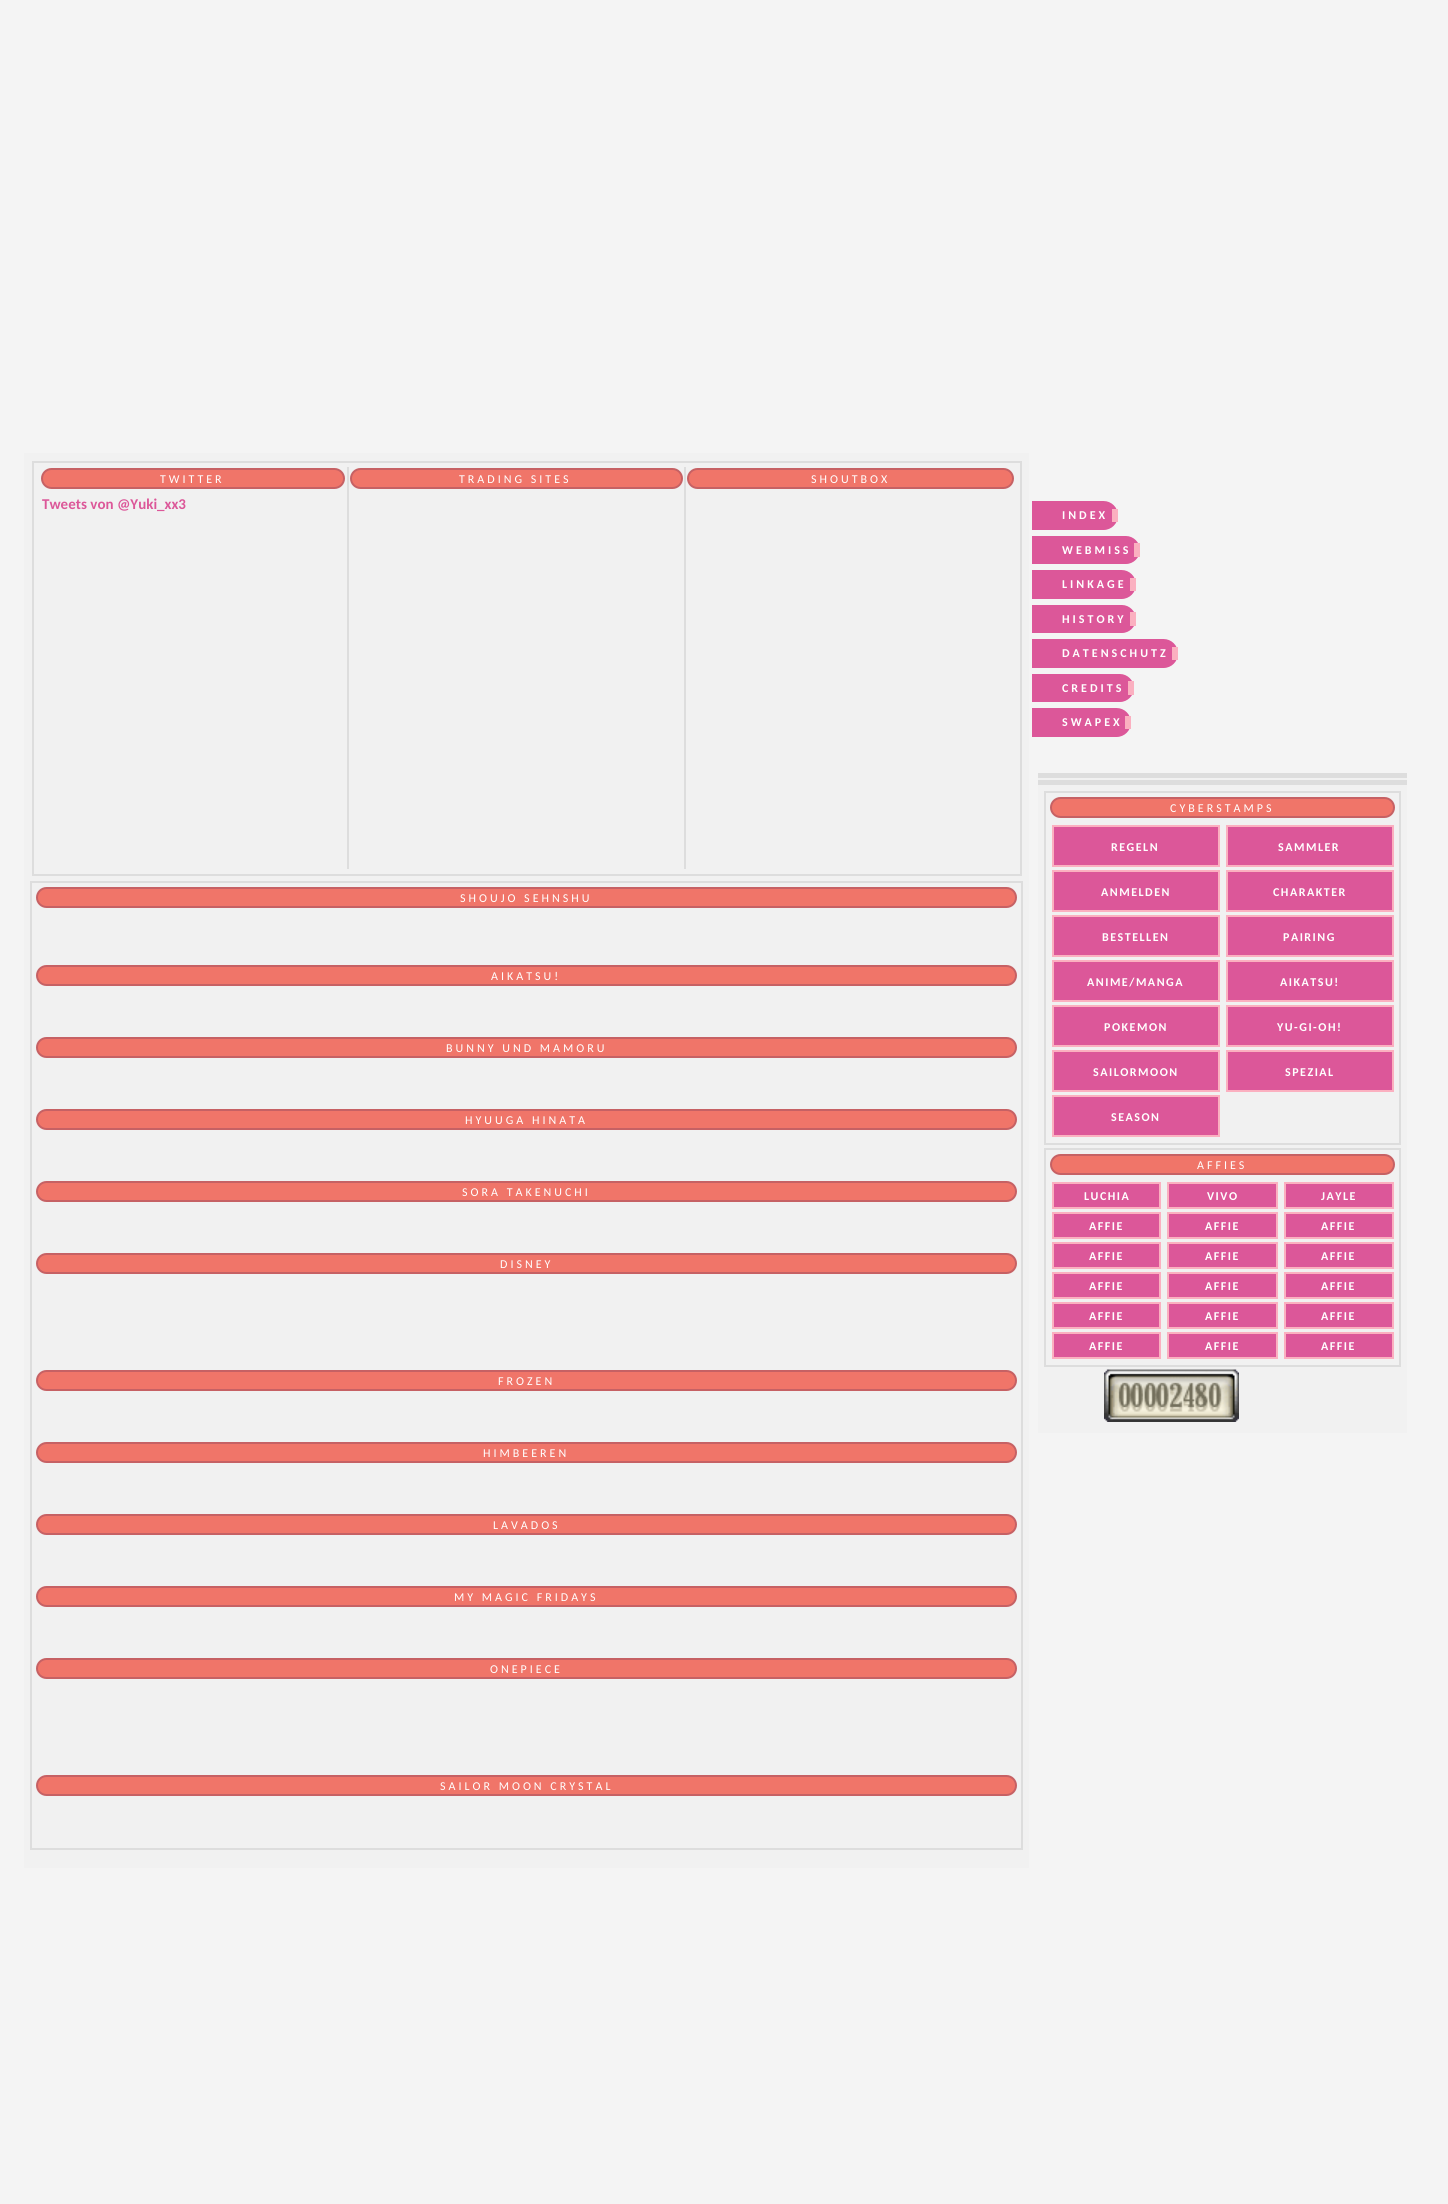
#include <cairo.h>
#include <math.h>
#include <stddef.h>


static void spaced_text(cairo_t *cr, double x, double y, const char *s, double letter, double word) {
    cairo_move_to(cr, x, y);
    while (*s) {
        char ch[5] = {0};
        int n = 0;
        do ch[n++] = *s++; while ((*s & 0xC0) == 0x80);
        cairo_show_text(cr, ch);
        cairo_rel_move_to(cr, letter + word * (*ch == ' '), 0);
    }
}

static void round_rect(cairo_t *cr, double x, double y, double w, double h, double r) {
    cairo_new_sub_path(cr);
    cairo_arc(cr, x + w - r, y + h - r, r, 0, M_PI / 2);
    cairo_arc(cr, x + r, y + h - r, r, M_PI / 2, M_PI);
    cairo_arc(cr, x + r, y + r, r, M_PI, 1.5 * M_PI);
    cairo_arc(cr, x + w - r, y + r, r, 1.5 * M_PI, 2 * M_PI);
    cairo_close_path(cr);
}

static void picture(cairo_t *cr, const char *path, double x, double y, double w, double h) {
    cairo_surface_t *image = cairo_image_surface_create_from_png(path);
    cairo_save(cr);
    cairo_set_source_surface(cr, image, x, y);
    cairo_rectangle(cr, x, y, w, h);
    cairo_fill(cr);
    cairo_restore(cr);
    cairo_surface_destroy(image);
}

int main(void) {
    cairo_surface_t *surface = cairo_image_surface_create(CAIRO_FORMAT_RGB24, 1448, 2204);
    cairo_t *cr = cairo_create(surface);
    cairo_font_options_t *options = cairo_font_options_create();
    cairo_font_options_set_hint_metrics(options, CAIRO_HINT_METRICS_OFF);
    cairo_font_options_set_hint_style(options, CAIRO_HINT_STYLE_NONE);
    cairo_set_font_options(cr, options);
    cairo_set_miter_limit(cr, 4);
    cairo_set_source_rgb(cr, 0.957, 0.957, 0.957);
    cairo_paint(cr);
    cairo_set_source_rgb(cr, 0.945, 0.945, 0.945);
    cairo_rectangle(cr, 24, 453, 1005, 1415);
    cairo_fill(cr);
    cairo_rectangle(cr, 33, 462, 988, 413);
    cairo_set_source_rgb(cr, 0.867, 0.867, 0.867);
    cairo_stroke(cr);
    cairo_rectangle(cr, 347, 467, 2, 402);
    cairo_fill(cr);
    cairo_set_source_rgb(cr, 0.941, 0.459, 0.412);
    round_rect(cr, 42, 469, 302, 19, 9.5);
    cairo_fill_preserve(cr);
    cairo_set_source_rgb(cr, 0.776, 0.38, 0.392);
    cairo_stroke(cr);
    cairo_select_font_face(cr, "Carlito", CAIRO_FONT_SLANT_NORMAL, CAIRO_FONT_WEIGHT_NORMAL);
    cairo_set_font_size(cr, 12);
    cairo_set_source_rgb(cr, 1, 1, 1);
    spaced_text(cr, 160, 483, "TWITTER", 3, 0);
    cairo_select_font_face(cr, "Carlito", CAIRO_FONT_SLANT_NORMAL, CAIRO_FONT_WEIGHT_BOLD);
    cairo_set_font_size(cr, 15);
    cairo_set_source_rgb(cr, 0.863, 0.341, 0.6);
    cairo_move_to(cr, 42, 509);
    cairo_show_text(cr, "Tweets von @Yuki_xx3");
    cairo_set_source_rgb(cr, 0.867, 0.867, 0.867);
    cairo_rectangle(cr, 684, 467, 2, 402);
    cairo_fill(cr);
    cairo_set_source_rgb(cr, 0.941, 0.459, 0.412);
    round_rect(cr, 351, 469, 331, 19, 9.5);
    cairo_fill_preserve(cr);
    cairo_set_source_rgb(cr, 0.776, 0.38, 0.392);
    cairo_stroke(cr);
    cairo_select_font_face(cr, "Carlito", CAIRO_FONT_SLANT_NORMAL, CAIRO_FONT_WEIGHT_NORMAL);
    cairo_set_font_size(cr, 12);
    cairo_set_source_rgb(cr, 1, 1, 1);
    spaced_text(cr, 459, 483, "TRADING SITES", 3, 0);
    cairo_set_source_rgb(cr, 0.941, 0.459, 0.412);
    round_rect(cr, 688, 469, 325, 19, 9.5);
    cairo_fill_preserve(cr);
    cairo_set_source_rgb(cr, 0.776, 0.38, 0.392);
    cairo_stroke(cr);
    cairo_set_source_rgb(cr, 1, 1, 1);
    spaced_text(cr, 811, 483, "SHOUTBOX", 3, 0);
    cairo_rectangle(cr, 31, 882, 991, 967);
    cairo_set_source_rgb(cr, 0.867, 0.867, 0.867);
    cairo_stroke(cr);
    cairo_set_source_rgb(cr, 0.941, 0.459, 0.412);
    round_rect(cr, 37, 888, 979, 19, 9.5);
    cairo_fill_preserve(cr);
    cairo_set_source_rgb(cr, 0.776, 0.38, 0.392);
    cairo_stroke(cr);
    cairo_set_source_rgb(cr, 1, 1, 1);
    spaced_text(cr, 460, 902, "SHOUJO SEHNSHU", 3, 0);
    cairo_set_source_rgb(cr, 0.941, 0.459, 0.412);
    round_rect(cr, 37, 966, 979, 19, 9.5);
    cairo_fill_preserve(cr);
    cairo_set_source_rgb(cr, 0.776, 0.38, 0.392);
    cairo_stroke(cr);
    cairo_set_source_rgb(cr, 1, 1, 1);
    spaced_text(cr, 491, 980, "AIKATSU!", 3, 0);
    cairo_set_source_rgb(cr, 0.941, 0.459, 0.412);
    round_rect(cr, 37, 1038, 979, 19, 9.5);
    cairo_fill_preserve(cr);
    cairo_set_source_rgb(cr, 0.776, 0.38, 0.392);
    cairo_stroke(cr);
    cairo_set_source_rgb(cr, 1, 1, 1);
    spaced_text(cr, 446, 1052, "BUNNY UND MAMORU", 3, 0);
    cairo_set_source_rgb(cr, 0.941, 0.459, 0.412);
    round_rect(cr, 37, 1110, 979, 19, 9.5);
    cairo_fill_preserve(cr);
    cairo_set_source_rgb(cr, 0.776, 0.38, 0.392);
    cairo_stroke(cr);
    cairo_set_source_rgb(cr, 1, 1, 1);
    spaced_text(cr, 465, 1124, "HYUUGA HINATA", 3, 0);
    cairo_set_source_rgb(cr, 0.941, 0.459, 0.412);
    round_rect(cr, 37, 1182, 979, 19, 9.5);
    cairo_fill_preserve(cr);
    cairo_set_source_rgb(cr, 0.776, 0.38, 0.392);
    cairo_stroke(cr);
    cairo_set_source_rgb(cr, 1, 1, 1);
    spaced_text(cr, 462, 1196, "SORA TAKENUCHI", 3, 0);
    cairo_set_source_rgb(cr, 0.941, 0.459, 0.412);
    round_rect(cr, 37, 1254, 979, 19, 9.5);
    cairo_fill_preserve(cr);
    cairo_set_source_rgb(cr, 0.776, 0.38, 0.392);
    cairo_stroke(cr);
    cairo_set_source_rgb(cr, 1, 1, 1);
    spaced_text(cr, 500, 1268, "DISNEY", 3, 0);
    cairo_set_source_rgb(cr, 0.941, 0.459, 0.412);
    round_rect(cr, 37, 1371, 979, 19, 9.5);
    cairo_fill_preserve(cr);
    cairo_set_source_rgb(cr, 0.776, 0.38, 0.392);
    cairo_stroke(cr);
    cairo_set_source_rgb(cr, 1, 1, 1);
    spaced_text(cr, 498, 1385, "FROZEN", 3, 0);
    cairo_set_source_rgb(cr, 0.941, 0.459, 0.412);
    round_rect(cr, 37, 1443, 979, 19, 9.5);
    cairo_fill_preserve(cr);
    cairo_set_source_rgb(cr, 0.776, 0.38, 0.392);
    cairo_stroke(cr);
    cairo_set_source_rgb(cr, 1, 1, 1);
    spaced_text(cr, 483, 1457, "HIMBEEREN", 3, 0);
    cairo_set_source_rgb(cr, 0.941, 0.459, 0.412);
    round_rect(cr, 37, 1515, 979, 19, 9.5);
    cairo_fill_preserve(cr);
    cairo_set_source_rgb(cr, 0.776, 0.38, 0.392);
    cairo_stroke(cr);
    cairo_set_source_rgb(cr, 1, 1, 1);
    spaced_text(cr, 493, 1529, "LAVADOS", 3, 0);
    cairo_set_source_rgb(cr, 0.941, 0.459, 0.412);
    round_rect(cr, 37, 1587, 979, 19, 9.5);
    cairo_fill_preserve(cr);
    cairo_set_source_rgb(cr, 0.776, 0.38, 0.392);
    cairo_stroke(cr);
    cairo_set_source_rgb(cr, 1, 1, 1);
    spaced_text(cr, 454, 1601, "MY MAGIC FRIDAYS", 3, 0);
    cairo_set_source_rgb(cr, 0.941, 0.459, 0.412);
    round_rect(cr, 37, 1659, 979, 19, 9.5);
    cairo_fill_preserve(cr);
    cairo_set_source_rgb(cr, 0.776, 0.38, 0.392);
    cairo_stroke(cr);
    cairo_set_source_rgb(cr, 1, 1, 1);
    spaced_text(cr, 490, 1673, "ONEPIECE", 3, 0);
    cairo_set_source_rgb(cr, 0.941, 0.459, 0.412);
    round_rect(cr, 37, 1776, 979, 19, 9.5);
    cairo_fill_preserve(cr);
    cairo_set_source_rgb(cr, 0.776, 0.38, 0.392);
    cairo_stroke(cr);
    cairo_set_source_rgb(cr, 1, 1, 1);
    spaced_text(cr, 440, 1790, "SAILOR MOON CRYSTAL", 3, 0);
    cairo_set_source_rgb(cr, 0.863, 0.341, 0.6);
    cairo_new_path(cr);
    cairo_move_to(cr, 1032, 501);
    cairo_line_to(cr, 1103.5, 501);
    cairo_curve_to(cr, 1111.5, 501, 1118, 507.5, 1118, 515.5);
    cairo_curve_to(cr, 1118, 523.5, 1111.5, 530, 1103.5, 530);
    cairo_line_to(cr, 1032, 530);
    cairo_close_path(cr);
    cairo_fill(cr);
    cairo_set_source_rgb(cr, 0.984, 0.69, 0.753);
    cairo_rectangle(cr, 1112, 509, 6, 13);
    cairo_fill(cr);
    cairo_select_font_face(cr, "Carlito", CAIRO_FONT_SLANT_NORMAL, CAIRO_FONT_WEIGHT_BOLD);
    cairo_set_source_rgb(cr, 1, 1, 1);
    spaced_text(cr, 1062, 519, "INDEX", 3, 0);
    cairo_set_source_rgb(cr, 0.863, 0.341, 0.6);
    cairo_new_path(cr);
    cairo_move_to(cr, 1032, 536);
    cairo_line_to(cr, 1126, 536);
    cairo_curve_to(cr, 1133.5, 536, 1140, 542.5, 1140, 550);
    cairo_curve_to(cr, 1140, 557.5, 1133.5, 564, 1126, 564);
    cairo_line_to(cr, 1032, 564);
    cairo_close_path(cr);
    cairo_fill(cr);
    cairo_set_source_rgb(cr, 0.984, 0.69, 0.753);
    cairo_rectangle(cr, 1134, 543, 6, 14);
    cairo_fill(cr);
    cairo_set_source_rgb(cr, 1, 1, 1);
    spaced_text(cr, 1062, 554, "WEBMISS", 3, 0);
    cairo_set_source_rgb(cr, 0.863, 0.341, 0.6);
    cairo_new_path(cr);
    cairo_move_to(cr, 1032, 570);
    cairo_line_to(cr, 1121.5, 570);
    cairo_curve_to(cr, 1129.5, 570, 1136, 576.5, 1136, 584.5);
    cairo_curve_to(cr, 1136, 592.5, 1129.5, 599, 1121.5, 599);
    cairo_line_to(cr, 1032, 599);
    cairo_close_path(cr);
    cairo_fill(cr);
    cairo_set_source_rgb(cr, 0.984, 0.69, 0.753);
    cairo_rectangle(cr, 1130, 578, 6, 13);
    cairo_fill(cr);
    cairo_set_source_rgb(cr, 1, 1, 1);
    spaced_text(cr, 1062, 588, "LINKAGE", 3, 0);
    cairo_set_source_rgb(cr, 0.863, 0.341, 0.6);
    cairo_new_path(cr);
    cairo_move_to(cr, 1032, 605);
    cairo_line_to(cr, 1122, 605);
    cairo_curve_to(cr, 1129.5, 605, 1136, 611.5, 1136, 619);
    cairo_curve_to(cr, 1136, 626.5, 1129.5, 633, 1122, 633);
    cairo_line_to(cr, 1032, 633);
    cairo_close_path(cr);
    cairo_fill(cr);
    cairo_set_source_rgb(cr, 0.984, 0.69, 0.753);
    cairo_rectangle(cr, 1130, 612, 6, 14);
    cairo_fill(cr);
    cairo_set_source_rgb(cr, 1, 1, 1);
    spaced_text(cr, 1062, 623, "HISTORY", 3, 0);
    cairo_set_source_rgb(cr, 0.863, 0.341, 0.6);
    cairo_new_path(cr);
    cairo_move_to(cr, 1032, 639);
    cairo_line_to(cr, 1163.5, 639);
    cairo_curve_to(cr, 1171.5, 639, 1178, 645.5, 1178, 653.5);
    cairo_curve_to(cr, 1178, 661.5, 1171.5, 668, 1163.5, 668);
    cairo_line_to(cr, 1032, 668);
    cairo_close_path(cr);
    cairo_fill(cr);
    cairo_set_source_rgb(cr, 0.984, 0.69, 0.753);
    cairo_rectangle(cr, 1172, 647, 6, 13);
    cairo_fill(cr);
    cairo_set_source_rgb(cr, 1, 1, 1);
    spaced_text(cr, 1062, 657, "DATENSCHUTZ", 3, 0);
    cairo_set_source_rgb(cr, 0.863, 0.341, 0.6);
    cairo_new_path(cr);
    cairo_move_to(cr, 1032, 674);
    cairo_line_to(cr, 1120, 674);
    cairo_curve_to(cr, 1127.5, 674, 1134, 680.5, 1134, 688);
    cairo_curve_to(cr, 1134, 695.5, 1127.5, 702, 1120, 702);
    cairo_line_to(cr, 1032, 702);
    cairo_close_path(cr);
    cairo_fill(cr);
    cairo_set_source_rgb(cr, 0.984, 0.69, 0.753);
    cairo_rectangle(cr, 1128, 681, 6, 14);
    cairo_fill(cr);
    cairo_set_source_rgb(cr, 1, 1, 1);
    spaced_text(cr, 1062, 692, "CREDITS", 3, 0);
    cairo_set_source_rgb(cr, 0.863, 0.341, 0.6);
    cairo_new_path(cr);
    cairo_move_to(cr, 1032, 708);
    cairo_line_to(cr, 1116.5, 708);
    cairo_curve_to(cr, 1124.5, 708, 1131, 714.5, 1131, 722.5);
    cairo_curve_to(cr, 1131, 730.5, 1124.5, 737, 1116.5, 737);
    cairo_line_to(cr, 1032, 737);
    cairo_close_path(cr);
    cairo_fill(cr);
    cairo_set_source_rgb(cr, 0.984, 0.69, 0.753);
    cairo_rectangle(cr, 1125, 716, 6, 13);
    cairo_fill(cr);
    cairo_set_source_rgb(cr, 1, 1, 1);
    spaced_text(cr, 1062, 726, "SWAPEX", 3, 0);
    cairo_set_source_rgb(cr, 0.945, 0.945, 0.945);
    cairo_rectangle(cr, 1038, 778, 369, 655);
    cairo_fill(cr);
    cairo_set_source_rgb(cr, 0.867, 0.867, 0.867);
    cairo_rectangle(cr, 1038, 773, 369, 5);
    cairo_fill(cr);
    cairo_rectangle(cr, 1038, 780, 369, 5);
    cairo_fill(cr);
    cairo_rectangle(cr, 1045, 792, 355, 352);
    cairo_stroke(cr);
    cairo_set_source_rgb(cr, 0.941, 0.459, 0.412);
    round_rect(cr, 1051, 798, 343, 19, 9.5);
    cairo_fill_preserve(cr);
    cairo_set_source_rgb(cr, 0.776, 0.38, 0.392);
    cairo_stroke(cr);
    cairo_select_font_face(cr, "Carlito", CAIRO_FONT_SLANT_NORMAL, CAIRO_FONT_WEIGHT_NORMAL);
    cairo_set_source_rgb(cr, 1, 1, 1);
    spaced_text(cr, 1170, 812, "CYBERSTAMPS", 3, 0);
    cairo_set_source_rgb(cr, 0.863, 0.341, 0.6);
    cairo_rectangle(cr, 1053, 826, 166, 40);
    cairo_fill_preserve(cr);
    cairo_set_source_rgb(cr, 0.984, 0.69, 0.753);
    cairo_stroke(cr);
    cairo_select_font_face(cr, "Carlito", CAIRO_FONT_SLANT_NORMAL, CAIRO_FONT_WEIGHT_BOLD);
    cairo_set_source_rgb(cr, 1, 1, 1);
    spaced_text(cr, 1111, 851, "REGELN", 1.5, 0);
    cairo_set_source_rgb(cr, 0.863, 0.341, 0.6);
    cairo_rectangle(cr, 1053, 871, 166, 40);
    cairo_fill_preserve(cr);
    cairo_set_source_rgb(cr, 0.984, 0.69, 0.753);
    cairo_stroke(cr);
    cairo_set_source_rgb(cr, 1, 1, 1);
    spaced_text(cr, 1101, 896, "ANMELDEN", 1.5, 0);
    cairo_set_source_rgb(cr, 0.863, 0.341, 0.6);
    cairo_rectangle(cr, 1053, 916, 166, 40);
    cairo_fill_preserve(cr);
    cairo_set_source_rgb(cr, 0.984, 0.69, 0.753);
    cairo_stroke(cr);
    cairo_set_source_rgb(cr, 1, 1, 1);
    spaced_text(cr, 1102, 941, "BESTELLEN", 1.5, 0);
    cairo_set_source_rgb(cr, 0.863, 0.341, 0.6);
    cairo_rectangle(cr, 1053, 961, 166, 40);
    cairo_fill_preserve(cr);
    cairo_set_source_rgb(cr, 0.984, 0.69, 0.753);
    cairo_stroke(cr);
    cairo_set_source_rgb(cr, 1, 1, 1);
    spaced_text(cr, 1087, 986, "ANIME/MANGA", 1.5, 0);
    cairo_set_source_rgb(cr, 0.863, 0.341, 0.6);
    cairo_rectangle(cr, 1053, 1006, 166, 40);
    cairo_fill_preserve(cr);
    cairo_set_source_rgb(cr, 0.984, 0.69, 0.753);
    cairo_stroke(cr);
    cairo_set_source_rgb(cr, 1, 1, 1);
    spaced_text(cr, 1104, 1031, "POKEMON", 1.5, 0);
    cairo_set_source_rgb(cr, 0.863, 0.341, 0.6);
    cairo_rectangle(cr, 1053, 1051, 166, 40);
    cairo_fill_preserve(cr);
    cairo_set_source_rgb(cr, 0.984, 0.69, 0.753);
    cairo_stroke(cr);
    cairo_set_source_rgb(cr, 1, 1, 1);
    spaced_text(cr, 1093, 1076, "SAILORMOON", 1.5, 0);
    cairo_set_source_rgb(cr, 0.863, 0.341, 0.6);
    cairo_rectangle(cr, 1053, 1096, 166, 40);
    cairo_fill_preserve(cr);
    cairo_set_source_rgb(cr, 0.984, 0.69, 0.753);
    cairo_stroke(cr);
    cairo_set_source_rgb(cr, 1, 1, 1);
    spaced_text(cr, 1111, 1121, "SEASON", 1.5, 0);
    cairo_set_source_rgb(cr, 0.863, 0.341, 0.6);
    cairo_rectangle(cr, 1227, 826, 166, 40);
    cairo_fill_preserve(cr);
    cairo_set_source_rgb(cr, 0.984, 0.69, 0.753);
    cairo_stroke(cr);
    cairo_set_source_rgb(cr, 1, 1, 1);
    spaced_text(cr, 1278, 851, "SAMMLER", 1.5, 0);
    cairo_set_source_rgb(cr, 0.863, 0.341, 0.6);
    cairo_rectangle(cr, 1227, 871, 166, 40);
    cairo_fill_preserve(cr);
    cairo_set_source_rgb(cr, 0.984, 0.69, 0.753);
    cairo_stroke(cr);
    cairo_set_source_rgb(cr, 1, 1, 1);
    spaced_text(cr, 1273, 896, "CHARAKTER", 1.5, 0);
    cairo_set_source_rgb(cr, 0.863, 0.341, 0.6);
    cairo_rectangle(cr, 1227, 916, 166, 40);
    cairo_fill_preserve(cr);
    cairo_set_source_rgb(cr, 0.984, 0.69, 0.753);
    cairo_stroke(cr);
    cairo_set_source_rgb(cr, 1, 1, 1);
    spaced_text(cr, 1283, 941, "PAIRING", 1.5, 0);
    cairo_set_source_rgb(cr, 0.863, 0.341, 0.6);
    cairo_rectangle(cr, 1227, 961, 166, 40);
    cairo_fill_preserve(cr);
    cairo_set_source_rgb(cr, 0.984, 0.69, 0.753);
    cairo_stroke(cr);
    cairo_set_source_rgb(cr, 1, 1, 1);
    spaced_text(cr, 1280, 986, "AIKATSU!", 1.5, 0);
    cairo_set_source_rgb(cr, 0.863, 0.341, 0.6);
    cairo_rectangle(cr, 1227, 1006, 166, 40);
    cairo_fill_preserve(cr);
    cairo_set_source_rgb(cr, 0.984, 0.69, 0.753);
    cairo_stroke(cr);
    cairo_set_source_rgb(cr, 1, 1, 1);
    spaced_text(cr, 1277, 1031, "YU-GI-OH!", 1.5, 0);
    cairo_set_source_rgb(cr, 0.863, 0.341, 0.6);
    cairo_rectangle(cr, 1227, 1051, 166, 40);
    cairo_fill_preserve(cr);
    cairo_set_source_rgb(cr, 0.984, 0.69, 0.753);
    cairo_stroke(cr);
    cairo_set_source_rgb(cr, 1, 1, 1);
    spaced_text(cr, 1285, 1076, "SPEZIAL", 1.5, 0);
    cairo_rectangle(cr, 1045, 1149, 355, 217);
    cairo_set_source_rgb(cr, 0.867, 0.867, 0.867);
    cairo_stroke(cr);
    cairo_set_source_rgb(cr, 0.941, 0.459, 0.412);
    round_rect(cr, 1051, 1155, 343, 19, 9.5);
    cairo_fill_preserve(cr);
    cairo_set_source_rgb(cr, 0.776, 0.38, 0.392);
    cairo_stroke(cr);
    cairo_select_font_face(cr, "Carlito", CAIRO_FONT_SLANT_NORMAL, CAIRO_FONT_WEIGHT_NORMAL);
    cairo_set_source_rgb(cr, 1, 1, 1);
    spaced_text(cr, 1197, 1169, "AFFIES", 3, 0);
    cairo_set_source_rgb(cr, 0.863, 0.341, 0.6);
    cairo_rectangle(cr, 1053, 1183, 107, 25);
    cairo_fill_preserve(cr);
    cairo_set_source_rgb(cr, 0.984, 0.69, 0.753);
    cairo_stroke(cr);
    cairo_select_font_face(cr, "Carlito", CAIRO_FONT_SLANT_NORMAL, CAIRO_FONT_WEIGHT_BOLD);
    cairo_set_source_rgb(cr, 1, 1, 1);
    spaced_text(cr, 1084, 1200, "LUCHIA", 1.5, 0);
    cairo_set_source_rgb(cr, 0.863, 0.341, 0.6);
    cairo_rectangle(cr, 1053, 1213, 107, 25);
    cairo_fill_preserve(cr);
    cairo_set_source_rgb(cr, 0.984, 0.69, 0.753);
    cairo_stroke(cr);
    cairo_set_source_rgb(cr, 1, 1, 1);
    spaced_text(cr, 1089, 1230, "AFFIE", 1.5, 0);
    cairo_set_source_rgb(cr, 0.863, 0.341, 0.6);
    cairo_rectangle(cr, 1053, 1243, 107, 25);
    cairo_fill_preserve(cr);
    cairo_set_source_rgb(cr, 0.984, 0.69, 0.753);
    cairo_stroke(cr);
    cairo_set_source_rgb(cr, 1, 1, 1);
    spaced_text(cr, 1089, 1260, "AFFIE", 1.5, 0);
    cairo_set_source_rgb(cr, 0.863, 0.341, 0.6);
    cairo_rectangle(cr, 1053, 1273, 107, 25);
    cairo_fill_preserve(cr);
    cairo_set_source_rgb(cr, 0.984, 0.69, 0.753);
    cairo_stroke(cr);
    cairo_set_source_rgb(cr, 1, 1, 1);
    spaced_text(cr, 1089, 1290, "AFFIE", 1.5, 0);
    cairo_set_source_rgb(cr, 0.863, 0.341, 0.6);
    cairo_rectangle(cr, 1053, 1303, 107, 25);
    cairo_fill_preserve(cr);
    cairo_set_source_rgb(cr, 0.984, 0.69, 0.753);
    cairo_stroke(cr);
    cairo_set_source_rgb(cr, 1, 1, 1);
    spaced_text(cr, 1089, 1320, "AFFIE", 1.5, 0);
    cairo_set_source_rgb(cr, 0.863, 0.341, 0.6);
    cairo_rectangle(cr, 1053, 1333, 107, 25);
    cairo_fill_preserve(cr);
    cairo_set_source_rgb(cr, 0.984, 0.69, 0.753);
    cairo_stroke(cr);
    cairo_set_source_rgb(cr, 1, 1, 1);
    spaced_text(cr, 1089, 1350, "AFFIE", 1.5, 0);
    cairo_set_source_rgb(cr, 0.863, 0.341, 0.6);
    cairo_rectangle(cr, 1168, 1183, 109, 25);
    cairo_fill_preserve(cr);
    cairo_set_source_rgb(cr, 0.984, 0.69, 0.753);
    cairo_stroke(cr);
    cairo_set_source_rgb(cr, 1, 1, 1);
    spaced_text(cr, 1207, 1200, "VIVO", 1.5, 0);
    cairo_set_source_rgb(cr, 0.863, 0.341, 0.6);
    cairo_rectangle(cr, 1168, 1213, 109, 25);
    cairo_fill_preserve(cr);
    cairo_set_source_rgb(cr, 0.984, 0.69, 0.753);
    cairo_stroke(cr);
    cairo_set_source_rgb(cr, 1, 1, 1);
    spaced_text(cr, 1205, 1230, "AFFIE", 1.5, 0);
    cairo_set_source_rgb(cr, 0.863, 0.341, 0.6);
    cairo_rectangle(cr, 1168, 1243, 109, 25);
    cairo_fill_preserve(cr);
    cairo_set_source_rgb(cr, 0.984, 0.69, 0.753);
    cairo_stroke(cr);
    cairo_set_source_rgb(cr, 1, 1, 1);
    spaced_text(cr, 1205, 1260, "AFFIE", 1.5, 0);
    cairo_set_source_rgb(cr, 0.863, 0.341, 0.6);
    cairo_rectangle(cr, 1168, 1273, 109, 25);
    cairo_fill_preserve(cr);
    cairo_set_source_rgb(cr, 0.984, 0.69, 0.753);
    cairo_stroke(cr);
    cairo_set_source_rgb(cr, 1, 1, 1);
    spaced_text(cr, 1205, 1290, "AFFIE", 1.5, 0);
    cairo_set_source_rgb(cr, 0.863, 0.341, 0.6);
    cairo_rectangle(cr, 1168, 1303, 109, 25);
    cairo_fill_preserve(cr);
    cairo_set_source_rgb(cr, 0.984, 0.69, 0.753);
    cairo_stroke(cr);
    cairo_set_source_rgb(cr, 1, 1, 1);
    spaced_text(cr, 1205, 1320, "AFFIE", 1.5, 0);
    cairo_set_source_rgb(cr, 0.863, 0.341, 0.6);
    cairo_rectangle(cr, 1168, 1333, 109, 25);
    cairo_fill_preserve(cr);
    cairo_set_source_rgb(cr, 0.984, 0.69, 0.753);
    cairo_stroke(cr);
    cairo_set_source_rgb(cr, 1, 1, 1);
    spaced_text(cr, 1205, 1350, "AFFIE", 1.5, 0);
    cairo_set_source_rgb(cr, 0.863, 0.341, 0.6);
    cairo_rectangle(cr, 1285, 1183, 108, 25);
    cairo_fill_preserve(cr);
    cairo_set_source_rgb(cr, 0.984, 0.69, 0.753);
    cairo_stroke(cr);
    cairo_set_source_rgb(cr, 1, 1, 1);
    spaced_text(cr, 1321, 1200, "JAYLE", 1.5, 0);
    cairo_set_source_rgb(cr, 0.863, 0.341, 0.6);
    cairo_rectangle(cr, 1285, 1213, 108, 25);
    cairo_fill_preserve(cr);
    cairo_set_source_rgb(cr, 0.984, 0.69, 0.753);
    cairo_stroke(cr);
    cairo_set_source_rgb(cr, 1, 1, 1);
    spaced_text(cr, 1321, 1230, "AFFIE", 1.5, 0);
    cairo_set_source_rgb(cr, 0.863, 0.341, 0.6);
    cairo_rectangle(cr, 1285, 1243, 108, 25);
    cairo_fill_preserve(cr);
    cairo_set_source_rgb(cr, 0.984, 0.69, 0.753);
    cairo_stroke(cr);
    cairo_set_source_rgb(cr, 1, 1, 1);
    spaced_text(cr, 1321, 1260, "AFFIE", 1.5, 0);
    cairo_set_source_rgb(cr, 0.863, 0.341, 0.6);
    cairo_rectangle(cr, 1285, 1273, 108, 25);
    cairo_fill_preserve(cr);
    cairo_set_source_rgb(cr, 0.984, 0.69, 0.753);
    cairo_stroke(cr);
    cairo_set_source_rgb(cr, 1, 1, 1);
    spaced_text(cr, 1321, 1290, "AFFIE", 1.5, 0);
    cairo_set_source_rgb(cr, 0.863, 0.341, 0.6);
    cairo_rectangle(cr, 1285, 1303, 108, 25);
    cairo_fill_preserve(cr);
    cairo_set_source_rgb(cr, 0.984, 0.69, 0.753);
    cairo_stroke(cr);
    cairo_set_source_rgb(cr, 1, 1, 1);
    spaced_text(cr, 1321, 1320, "AFFIE", 1.5, 0);
    cairo_set_source_rgb(cr, 0.863, 0.341, 0.6);
    cairo_rectangle(cr, 1285, 1333, 108, 25);
    cairo_fill_preserve(cr);
    cairo_set_source_rgb(cr, 0.984, 0.69, 0.753);
    cairo_stroke(cr);
    cairo_set_source_rgb(cr, 1, 1, 1);
    spaced_text(cr, 1321, 1350, "AFFIE", 1.5, 0);
    picture(cr, "img1.png", 1104, 1369, 135, 53);
    cairo_surface_write_to_png(surface, "page.png");
    cairo_font_options_destroy(options);
    cairo_destroy(cr);
    cairo_surface_destroy(surface);
    return 0;
}
